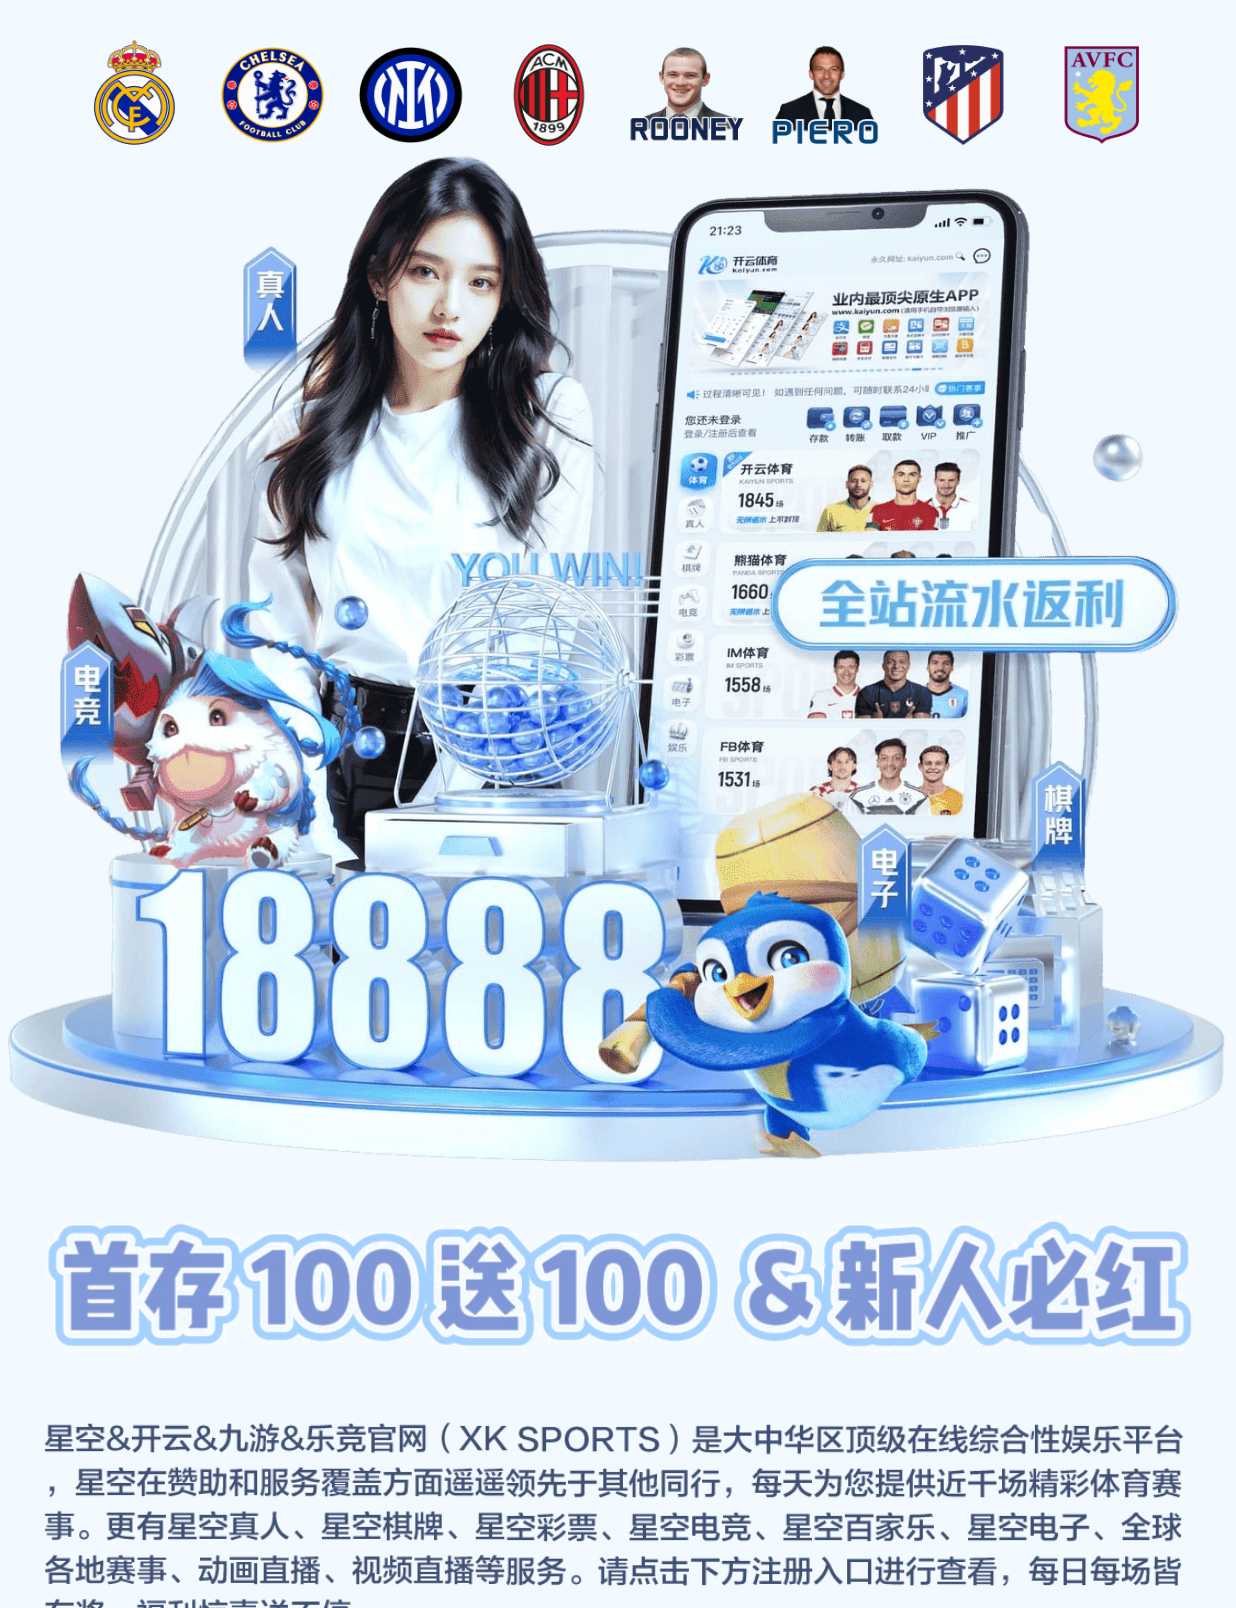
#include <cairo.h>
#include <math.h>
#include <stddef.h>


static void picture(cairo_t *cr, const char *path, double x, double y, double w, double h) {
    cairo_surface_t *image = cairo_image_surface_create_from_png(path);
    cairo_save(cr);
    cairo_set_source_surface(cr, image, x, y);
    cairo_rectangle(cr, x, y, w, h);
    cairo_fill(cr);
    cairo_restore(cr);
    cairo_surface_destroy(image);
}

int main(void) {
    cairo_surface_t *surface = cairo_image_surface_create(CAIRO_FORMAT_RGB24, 1236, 1608);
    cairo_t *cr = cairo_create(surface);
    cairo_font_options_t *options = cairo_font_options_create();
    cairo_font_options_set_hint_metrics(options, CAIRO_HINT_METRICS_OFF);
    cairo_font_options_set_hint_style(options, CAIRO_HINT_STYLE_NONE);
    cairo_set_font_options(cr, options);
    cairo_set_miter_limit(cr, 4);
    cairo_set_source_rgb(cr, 0.953, 0.98, 1);
    cairo_paint(cr);
    picture(cr, "img1.png", 94, 39, 1045, 107);
    picture(cr, "img2.png", 7, 155, 1218, 1008);
    picture(cr, "img3.png", 44, 1213, 1152, 395);
    cairo_surface_write_to_png(surface, "page.png");
    cairo_font_options_destroy(options);
    cairo_destroy(cr);
    cairo_surface_destroy(surface);
    return 0;
}
